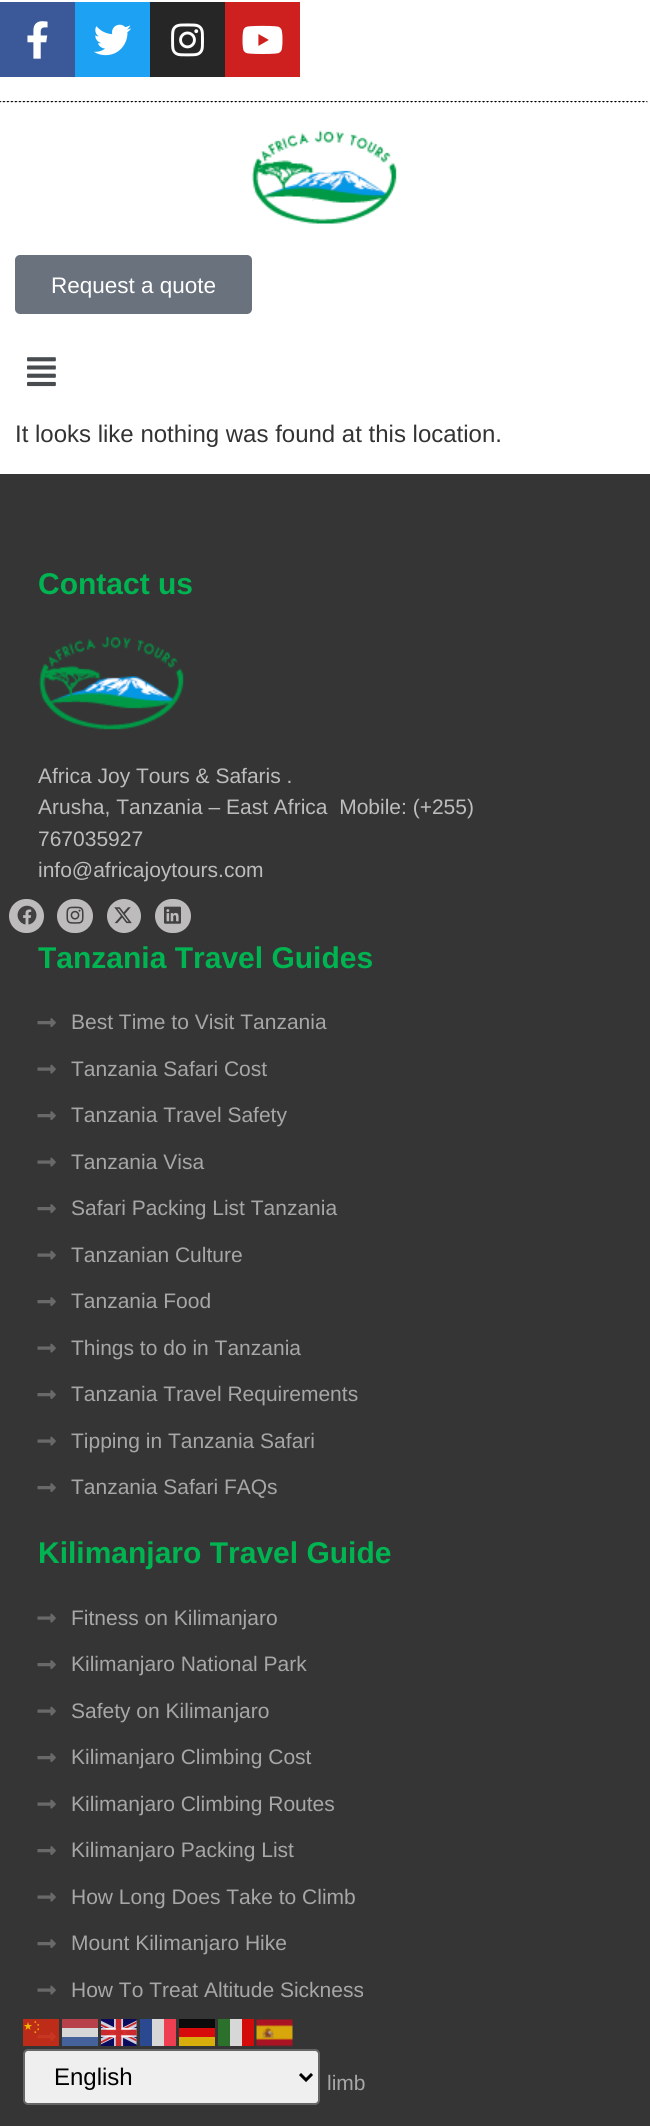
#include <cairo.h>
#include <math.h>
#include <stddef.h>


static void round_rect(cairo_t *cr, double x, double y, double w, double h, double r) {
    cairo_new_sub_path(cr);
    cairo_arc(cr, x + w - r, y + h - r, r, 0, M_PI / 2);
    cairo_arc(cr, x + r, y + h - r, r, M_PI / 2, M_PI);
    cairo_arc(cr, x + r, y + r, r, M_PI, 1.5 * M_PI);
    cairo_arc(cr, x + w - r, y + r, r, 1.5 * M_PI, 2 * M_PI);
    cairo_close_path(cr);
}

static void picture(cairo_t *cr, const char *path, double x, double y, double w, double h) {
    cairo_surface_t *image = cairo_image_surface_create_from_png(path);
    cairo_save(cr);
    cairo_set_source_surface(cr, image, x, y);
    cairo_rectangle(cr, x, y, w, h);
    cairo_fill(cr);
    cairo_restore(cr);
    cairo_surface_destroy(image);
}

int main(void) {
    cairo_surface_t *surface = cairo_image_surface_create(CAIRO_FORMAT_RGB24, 650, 2126);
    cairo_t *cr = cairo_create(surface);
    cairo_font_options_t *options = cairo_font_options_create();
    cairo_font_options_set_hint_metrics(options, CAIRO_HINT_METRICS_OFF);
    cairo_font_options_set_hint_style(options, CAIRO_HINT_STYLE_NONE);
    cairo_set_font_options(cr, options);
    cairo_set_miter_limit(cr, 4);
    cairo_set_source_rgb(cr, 1, 1, 1);
    cairo_paint(cr);
    cairo_set_source_rgb(cr, 0.231, 0.349, 0.596);
    cairo_rectangle(cr, 0, 2, 75, 75);
    cairo_fill(cr);
    picture(cr, "img1.png", 27, 21, 21, 38);
    cairo_set_source_rgb(cr, 0.114, 0.631, 0.949);
    cairo_rectangle(cr, 75, 2, 75, 75);
    cairo_fill(cr);
    picture(cr, "img2.png", 94, 24, 38, 32);
    cairo_set_source_rgb(cr, 0.149, 0.149, 0.149);
    cairo_rectangle(cr, 150, 2, 75, 75);
    cairo_fill(cr);
    picture(cr, "img3.png", 171, 23, 33, 34);
    cairo_set_source_rgb(cr, 0.804, 0.125, 0.122);
    cairo_rectangle(cr, 225, 2, 75, 75);
    cairo_fill(cr);
    picture(cr, "img4.png", 242, 25, 41, 29);
    picture(cr, "img5.png", 0, 101, 648, 2);
    picture(cr, "img6.png", 251, 130, 146, 94);
    cairo_set_source_rgb(cr, 0.412, 0.447, 0.49);
    round_rect(cr, 15, 255, 237, 59, 5);
    cairo_fill(cr);
    cairo_select_font_face(cr, "Liberation Sans", CAIRO_FONT_SLANT_NORMAL, CAIRO_FONT_WEIGHT_NORMAL);
    cairo_set_font_size(cr, 22.5);
    cairo_set_source_rgb(cr, 1, 1, 1);
    cairo_move_to(cr, 51, 293);
    cairo_show_text(cr, "Request a quote");
    picture(cr, "img7.png", 27, 357, 29, 30);
    cairo_set_font_size(cr, 24);
    cairo_set_source_rgb(cr, 0.2, 0.2, 0.2);
    cairo_move_to(cr, 15, 442);
    cairo_show_text(cr, "It looks like nothing was found at this location.");
    cairo_set_source_rgb(cr, 0.208, 0.208, 0.208);
    cairo_rectangle(cr, 0, 474, 650, 1652);
    cairo_fill(cr);
    cairo_select_font_face(cr, "Liberation Sans", CAIRO_FONT_SLANT_NORMAL, CAIRO_FONT_WEIGHT_BOLD);
    cairo_set_font_size(cr, 30);
    cairo_set_source_rgb(cr, 0, 0.706, 0.322);
    cairo_move_to(cr, 38, 594);
    cairo_show_text(cr, "Contact us");
    picture(cr, "img8.png", 39, 636, 145, 94);
    cairo_select_font_face(cr, "Liberation Sans", CAIRO_FONT_SLANT_NORMAL, CAIRO_FONT_WEIGHT_NORMAL);
    cairo_set_font_size(cr, 21);
    cairo_set_source_rgb(cr, 0.741, 0.741, 0.741);
    cairo_move_to(cr, 38, 783);
    cairo_show_text(cr, "Africa Joy Tours & Safaris .");
    cairo_move_to(cr, 38, 814);
    cairo_show_text(cr, "Arusha, Tanzania – East Africa  Mobile: (+255)");
    cairo_move_to(cr, 38, 846);
    cairo_show_text(cr, "767035927");
    cairo_move_to(cr, 38, 877);
    cairo_show_text(cr, "info@africajoytours.com");
    cairo_set_source_rgb(cr, 0.741, 0.733, 0.733);
    round_rect(cr, 9, 899, 35, 34, 17);
    cairo_fill(cr);
    picture(cr, "img9.png", 17, 905, 20, 20);
    round_rect(cr, 57, 899, 36, 34, 17);
    cairo_fill(cr);
    picture(cr, "img10.png", 66, 906, 18, 18);
    cairo_arc(cr, 124, 916, 17, 0, 2 * M_PI);
    cairo_fill(cr);
    picture(cr, "img11.png", 114, 907, 18, 17);
    round_rect(cr, 155, 899, 36, 34, 17);
    cairo_fill(cr);
    picture(cr, "img12.png", 164, 906, 17, 18);
    cairo_select_font_face(cr, "Liberation Sans", CAIRO_FONT_SLANT_NORMAL, CAIRO_FONT_WEIGHT_BOLD);
    cairo_set_font_size(cr, 30);
    cairo_set_source_rgb(cr, 0, 0.706, 0.322);
    cairo_move_to(cr, 38, 968);
    cairo_show_text(cr, "Tanzania Travel Guides");
    picture(cr, "img13.png", 37, 1018, 19, 9);
    cairo_select_font_face(cr, "Liberation Sans", CAIRO_FONT_SLANT_NORMAL, CAIRO_FONT_WEIGHT_NORMAL);
    cairo_set_font_size(cr, 21);
    cairo_set_source_rgb(cr, 0.655, 0.655, 0.655);
    cairo_move_to(cr, 71, 1029);
    cairo_show_text(cr, "Best Time to Visit Tanzania");
    picture(cr, "img14.png", 37, 1064, 19, 10);
    cairo_move_to(cr, 71, 1076);
    cairo_show_text(cr, "Tanzania Safari Cost");
    picture(cr, "img13.png", 37, 1111, 19, 9);
    cairo_move_to(cr, 71, 1122);
    cairo_show_text(cr, "Tanzania Travel Safety");
    picture(cr, "img14.png", 37, 1157, 19, 10);
    cairo_move_to(cr, 71, 1169);
    cairo_show_text(cr, "Tanzania Visa");
    picture(cr, "img13.png", 37, 1204, 19, 9);
    cairo_move_to(cr, 71, 1215);
    cairo_show_text(cr, "Safari Packing List Tanzania");
    picture(cr, "img14.png", 37, 1250, 19, 10);
    cairo_move_to(cr, 71, 1262);
    cairo_show_text(cr, "Tanzanian Culture");
    picture(cr, "img13.png", 37, 1297, 19, 9);
    cairo_move_to(cr, 71, 1308);
    cairo_show_text(cr, "Tanzania Food");
    picture(cr, "img14.png", 37, 1343, 19, 10);
    cairo_move_to(cr, 71, 1355);
    cairo_show_text(cr, "Things to do in Tanzania");
    picture(cr, "img13.png", 37, 1390, 19, 9);
    cairo_move_to(cr, 71, 1401);
    cairo_show_text(cr, "Tanzania Travel Requirements");
    picture(cr, "img14.png", 37, 1436, 19, 10);
    cairo_move_to(cr, 71, 1448);
    cairo_show_text(cr, "Tipping in Tanzania Safari");
    picture(cr, "img13.png", 37, 1483, 19, 9);
    cairo_move_to(cr, 71, 1494);
    cairo_show_text(cr, "Tanzania Safari FAQs");
    cairo_select_font_face(cr, "Liberation Sans", CAIRO_FONT_SLANT_NORMAL, CAIRO_FONT_WEIGHT_BOLD);
    cairo_set_font_size(cr, 30);
    cairo_set_source_rgb(cr, 0, 0.706, 0.322);
    cairo_move_to(cr, 38, 1563);
    cairo_show_text(cr, "Kilimanjaro Travel Guide");
    picture(cr, "img14.png", 37, 1613, 19, 10);
    cairo_select_font_face(cr, "Liberation Sans", CAIRO_FONT_SLANT_NORMAL, CAIRO_FONT_WEIGHT_NORMAL);
    cairo_set_font_size(cr, 21);
    cairo_set_source_rgb(cr, 0.655, 0.655, 0.655);
    cairo_move_to(cr, 71, 1625);
    cairo_show_text(cr, "Fitness on Kilimanjaro");
    picture(cr, "img13.png", 37, 1660, 19, 9);
    cairo_move_to(cr, 71, 1671);
    cairo_show_text(cr, "Kilimanjaro National Park");
    picture(cr, "img14.png", 37, 1706, 19, 10);
    cairo_move_to(cr, 71, 1718);
    cairo_show_text(cr, "Safety on Kilimanjaro");
    picture(cr, "img13.png", 37, 1753, 19, 9);
    cairo_move_to(cr, 71, 1764);
    cairo_show_text(cr, "Kilimanjaro Climbing Cost");
    picture(cr, "img14.png", 37, 1799, 19, 10);
    cairo_move_to(cr, 71, 1811);
    cairo_show_text(cr, "Kilimanjaro Climbing Routes");
    picture(cr, "img13.png", 37, 1846, 19, 9);
    cairo_move_to(cr, 71, 1857);
    cairo_show_text(cr, "Kilimanjaro Packing List");
    picture(cr, "img14.png", 37, 1892, 19, 10);
    cairo_move_to(cr, 71, 1904);
    cairo_show_text(cr, "How Long Does Take to Climb");
    picture(cr, "img13.png", 37, 1939, 19, 9);
    cairo_move_to(cr, 71, 1950);
    cairo_show_text(cr, "Mount Kilimanjaro Hike");
    picture(cr, "img14.png", 37, 1985, 19, 10);
    cairo_move_to(cr, 71, 1997);
    cairo_show_text(cr, "How To Treat Altitude Sickness");
    picture(cr, "img13.png", 37, 2032, 19, 9);
    cairo_move_to(cr, 327, 2090);
    cairo_show_text(cr, "limb");
    picture(cr, "img15.png", 23, 2019, 36, 27);
    cairo_set_source_rgba(cr, 1, 1, 1, 0.8);
    cairo_rectangle(cr, 62, 2019, 36, 27);
    cairo_fill(cr);
    cairo_set_source_rgba(cr, 0.682, 0.11, 0.157, 0.8);
    cairo_rectangle(cr, 62, 2019, 36, 9);
    cairo_fill(cr);
    picture(cr, "img16.png", 101, 2019, 36, 27);
    cairo_set_source_rgba(cr, 1, 1, 1, 0.8);
    cairo_rectangle(cr, 140, 2019, 36, 27);
    cairo_fill(cr);
    cairo_set_source_rgba(cr, 0, 0.149, 0.498, 0.8);
    cairo_rectangle(cr, 140, 2019, 12, 27);
    cairo_fill(cr);
    cairo_set_source_rgba(cr, 0.953, 0.094, 0.188, 0.8);
    cairo_rectangle(cr, 164, 2019, 12, 27);
    cairo_fill(cr);
    cairo_set_source_rgb(cr, 0.043, 0.043, 0.043);
    cairo_rectangle(cr, 179, 2019, 36, 9);
    cairo_fill(cr);
    cairo_set_source_rgba(cr, 1, 1, 1, 0.8);
    cairo_rectangle(cr, 218, 2019, 24, 27);
    cairo_fill(cr);
    cairo_set_source_rgba(cr, 1, 0, 0, 0.8);
    cairo_rectangle(cr, 179, 2028, 36, 9);
    cairo_fill(cr);
    cairo_set_source_rgba(cr, 0, 0.341, 0, 0.8);
    cairo_rectangle(cr, 218, 2019, 12, 27);
    cairo_fill(cr);
    cairo_set_source_rgb(cr, 0.831, 0.043, 0.043);
    cairo_rectangle(cr, 242, 2019, 12, 27);
    cairo_fill(cr);
    picture(cr, "img17.png", 256, 2019, 37, 28);
    cairo_set_source_rgba(cr, 0.129, 0.275, 0.545, 0.8);
    cairo_rectangle(cr, 62, 2037, 36, 9);
    cairo_fill(cr);
    cairo_set_source_rgba(cr, 1, 0.8, 0, 0.8);
    cairo_rectangle(cr, 179, 2037, 36, 9);
    cairo_fill(cr);
    cairo_set_source_rgb(cr, 0.937, 0.937, 0.937);
    round_rect(cr, 24, 2050, 295, 54, 4);
    cairo_fill_preserve(cr);
    cairo_set_source_rgb(cr, 0.4, 0.4, 0.4);
    cairo_stroke(cr);
    cairo_new_path(cr);
    cairo_move_to(cr, 300, 2074);
    cairo_line_to(cr, 306, 2080);
    cairo_line_to(cr, 312, 2074);
    cairo_set_source_rgb(cr, 0, 0, 0);
    cairo_set_line_width(cr, 3);
    cairo_stroke(cr);
    cairo_set_font_size(cr, 24);
    cairo_move_to(cr, 54, 2085);
    cairo_show_text(cr, "English");
    cairo_surface_write_to_png(surface, "page.png");
    cairo_font_options_destroy(options);
    cairo_destroy(cr);
    cairo_surface_destroy(surface);
    return 0;
}
